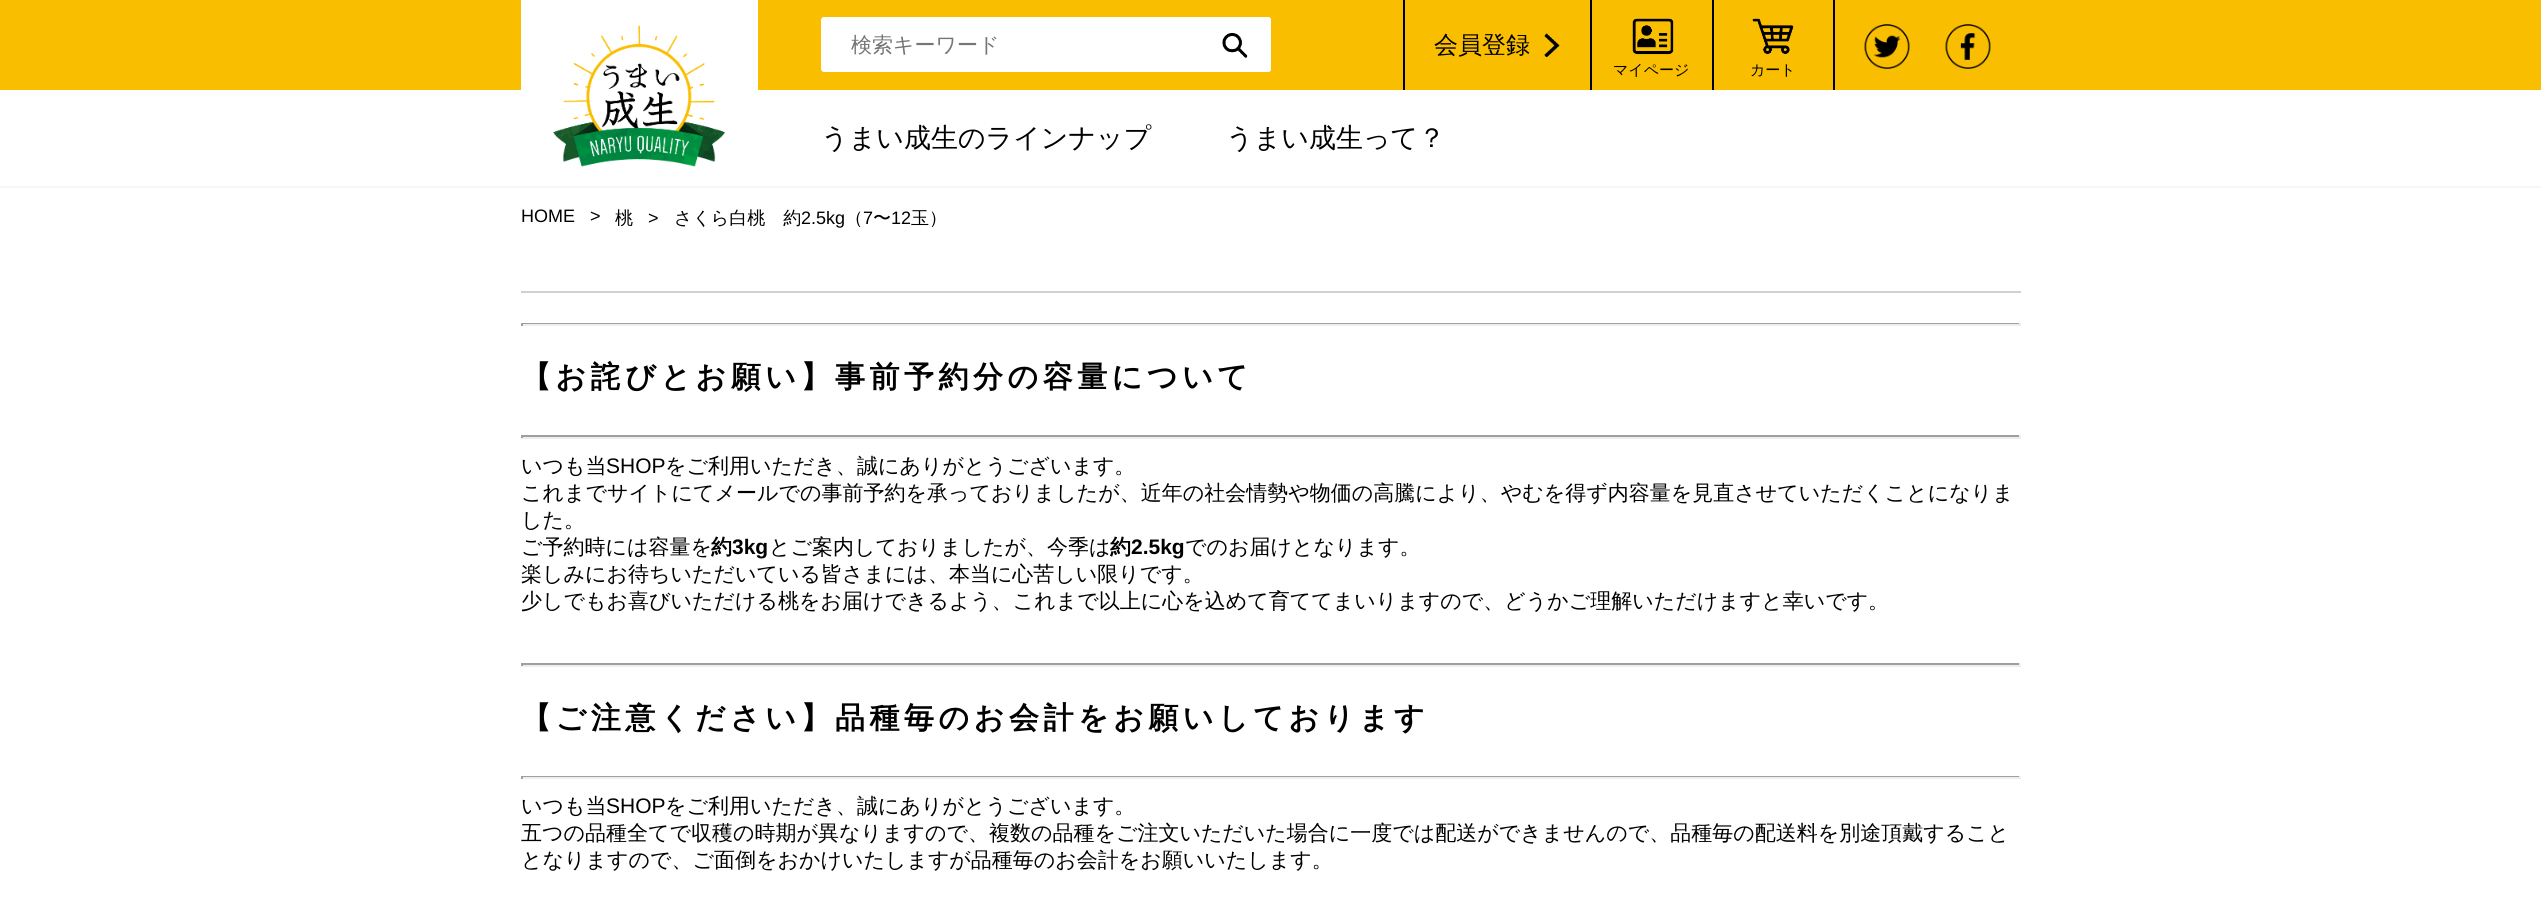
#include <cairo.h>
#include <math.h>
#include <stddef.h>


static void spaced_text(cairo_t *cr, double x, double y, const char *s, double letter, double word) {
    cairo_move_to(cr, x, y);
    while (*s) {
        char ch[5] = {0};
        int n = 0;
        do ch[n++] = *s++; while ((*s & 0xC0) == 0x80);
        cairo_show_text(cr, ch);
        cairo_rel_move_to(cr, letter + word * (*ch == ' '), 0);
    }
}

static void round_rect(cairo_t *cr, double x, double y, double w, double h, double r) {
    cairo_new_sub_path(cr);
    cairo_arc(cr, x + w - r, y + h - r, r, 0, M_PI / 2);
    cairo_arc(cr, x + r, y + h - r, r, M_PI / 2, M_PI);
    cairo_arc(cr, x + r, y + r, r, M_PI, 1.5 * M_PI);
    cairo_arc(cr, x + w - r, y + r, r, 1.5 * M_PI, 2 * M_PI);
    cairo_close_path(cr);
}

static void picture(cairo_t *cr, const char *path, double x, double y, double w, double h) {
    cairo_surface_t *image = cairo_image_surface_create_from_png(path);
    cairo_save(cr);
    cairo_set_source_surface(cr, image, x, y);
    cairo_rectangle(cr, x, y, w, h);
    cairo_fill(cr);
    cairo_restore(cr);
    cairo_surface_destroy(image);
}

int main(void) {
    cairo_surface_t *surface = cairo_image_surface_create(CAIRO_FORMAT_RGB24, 2541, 902);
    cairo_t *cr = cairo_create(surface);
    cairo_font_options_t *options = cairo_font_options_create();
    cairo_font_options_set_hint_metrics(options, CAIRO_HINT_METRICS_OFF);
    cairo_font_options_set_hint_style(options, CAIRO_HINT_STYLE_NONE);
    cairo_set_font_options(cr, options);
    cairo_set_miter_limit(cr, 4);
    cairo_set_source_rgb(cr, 1, 1, 1);
    cairo_paint(cr);
    cairo_set_source_rgb(cr, 0.961, 0.961, 0.961);
    cairo_rectangle(cr, 0, 186, 2541, 2);
    cairo_fill(cr);
    cairo_set_source_rgb(cr, 0.98, 0.745, 0);
    cairo_rectangle(cr, 0, 0, 2541, 90);
    cairo_fill(cr);
    cairo_set_source_rgb(cr, 1, 1, 1);
    cairo_rectangle(cr, 521, 0, 237, 90);
    cairo_fill(cr);
    picture(cr, "img1.png", 553, 25, 172, 142);
    cairo_set_source_rgb(cr, 0, 0, 0);
    cairo_rectangle(cr, 1403, 0, 2, 90);
    cairo_fill(cr);
    cairo_select_font_face(cr, "WenQuanYi Zen Hei Medium", CAIRO_FONT_SLANT_NORMAL, CAIRO_FONT_WEIGHT_NORMAL);
    cairo_set_font_size(cr, 24);
    cairo_move_to(cr, 1434, 53);
    cairo_show_text(cr, "会員登録");
    picture(cr, "img2.png", 1544, 33, 16, 24);
    cairo_rectangle(cr, 1833, 0, 2, 90);
    cairo_fill(cr);
    picture(cr, "img3.png", 1864, 24, 46, 45);
    picture(cr, "img4.png", 1945, 24, 46, 45);
    cairo_rectangle(cr, 1590, 0, 2, 90);
    cairo_fill(cr);
    picture(cr, "img5.png", 1632, 18, 42, 37);
    cairo_set_font_size(cr, 15);
    cairo_move_to(cr, 1613, 75);
    cairo_show_text(cr, "マイページ");
    cairo_rectangle(cr, 1712, 0, 2, 90);
    cairo_fill(cr);
    picture(cr, "img6.png", 1752, 18, 42, 36);
    cairo_move_to(cr, 1750, 75);
    cairo_show_text(cr, "カート");
    cairo_set_font_size(cr, 27);
    cairo_move_to(cr, 821, 147);
    cairo_show_text(cr, "うまい成生のラインナップ");
    cairo_move_to(cr, 1226, 147);
    cairo_show_text(cr, "うまい成生って？");
    cairo_set_source_rgb(cr, 1, 1, 1);
    round_rect(cr, 821, 17, 450, 55, 3);
    cairo_fill(cr);
    cairo_set_font_size(cr, 21);
    cairo_set_source_rgb(cr, 0.459, 0.459, 0.459);
    cairo_move_to(cr, 851, 52);
    cairo_show_text(cr, "検索キーワード");
    cairo_set_source_rgb(cr, 1, 1, 1);
    round_rect(cr, 1199, 17, 72, 55, 3);
    cairo_fill(cr);
    picture(cr, "img7.png", 1222, 32, 26, 26);
    cairo_select_font_face(cr, "Liberation Sans", CAIRO_FONT_SLANT_NORMAL, CAIRO_FONT_WEIGHT_NORMAL);
    cairo_set_font_size(cr, 18);
    cairo_set_source_rgb(cr, 0, 0, 0);
    cairo_move_to(cr, 521, 222);
    cairo_show_text(cr, "HOME");
    cairo_move_to(cr, 590, 222);
    cairo_show_text(cr, ">");
    cairo_select_font_face(cr, "WenQuanYi Zen Hei Medium", CAIRO_FONT_SLANT_NORMAL, CAIRO_FONT_WEIGHT_NORMAL);
    cairo_move_to(cr, 615, 224);
    cairo_show_text(cr, "桃");
    cairo_select_font_face(cr, "Liberation Sans", CAIRO_FONT_SLANT_NORMAL, CAIRO_FONT_WEIGHT_NORMAL);
    cairo_move_to(cr, 648, 224);
    cairo_show_text(cr, ">");
    cairo_select_font_face(cr, "WenQuanYi Zen Hei Medium", CAIRO_FONT_SLANT_NORMAL, CAIRO_FONT_WEIGHT_NORMAL);
    cairo_move_to(cr, 674, 224);
    cairo_show_text(cr, "さくら白桃　約");
    cairo_select_font_face(cr, "Liberation Sans", CAIRO_FONT_SLANT_NORMAL, CAIRO_FONT_WEIGHT_NORMAL);
    cairo_move_to(cr, 801, 224);
    cairo_show_text(cr, "2.5kg");
    cairo_select_font_face(cr, "WenQuanYi Zen Hei Medium", CAIRO_FONT_SLANT_NORMAL, CAIRO_FONT_WEIGHT_NORMAL);
    cairo_move_to(cr, 845, 224);
    cairo_show_text(cr, "（");
    cairo_select_font_face(cr, "Liberation Sans", CAIRO_FONT_SLANT_NORMAL, CAIRO_FONT_WEIGHT_NORMAL);
    cairo_move_to(cr, 863, 224);
    cairo_show_text(cr, "7");
    cairo_select_font_face(cr, "WenQuanYi Zen Hei Medium", CAIRO_FONT_SLANT_NORMAL, CAIRO_FONT_WEIGHT_NORMAL);
    cairo_move_to(cr, 873, 224);
    cairo_show_text(cr, "〜");
    cairo_select_font_face(cr, "Liberation Sans", CAIRO_FONT_SLANT_NORMAL, CAIRO_FONT_WEIGHT_NORMAL);
    cairo_move_to(cr, 891, 224);
    cairo_show_text(cr, "12");
    cairo_select_font_face(cr, "WenQuanYi Zen Hei Medium", CAIRO_FONT_SLANT_NORMAL, CAIRO_FONT_WEIGHT_NORMAL);
    cairo_move_to(cr, 911, 224);
    cairo_show_text(cr, "玉）");
    cairo_set_source_rgb(cr, 0.816, 0.816, 0.816);
    cairo_rectangle(cr, 521, 291, 1500, 2);
    cairo_fill(cr);
    cairo_set_source_rgb(cr, 0.624, 0.624, 0.624);
    cairo_rectangle(cr, 521, 323, 1500, 1);
    cairo_fill(cr);
    cairo_set_source_rgb(cr, 0.933, 0.933, 0.933);
    cairo_rectangle(cr, 2019, 323, 2, 3);
    cairo_fill(cr);
    cairo_rectangle(cr, 521, 324, 1500, 2);
    cairo_fill(cr);
    cairo_set_source_rgb(cr, 0.624, 0.624, 0.624);
    cairo_rectangle(cr, 521, 323, 2, 3);
    cairo_fill(cr);
    cairo_select_font_face(cr, "WenQuanYi Zen Hei", CAIRO_FONT_SLANT_NORMAL, CAIRO_FONT_WEIGHT_BOLD);
    cairo_set_font_size(cr, 30);
    cairo_set_source_rgb(cr, 0, 0, 0);
    spaced_text(cr, 521, 387, "【お詫びとお願い】事前予約分の容量について", 4.5, 0);
    cairo_set_source_rgb(cr, 0.624, 0.624, 0.624);
    cairo_rectangle(cr, 521, 435, 1500, 2);
    cairo_fill(cr);
    cairo_set_source_rgb(cr, 0.933, 0.933, 0.933);
    cairo_rectangle(cr, 2019, 435, 2, 3);
    cairo_fill(cr);
    cairo_rectangle(cr, 521, 437, 1500, 2);
    cairo_fill(cr);
    cairo_set_source_rgb(cr, 0.624, 0.624, 0.624);
    cairo_rectangle(cr, 521, 435, 2, 3);
    cairo_fill(cr);
    cairo_select_font_face(cr, "WenQuanYi Zen Hei Medium", CAIRO_FONT_SLANT_NORMAL, CAIRO_FONT_WEIGHT_NORMAL);
    cairo_set_font_size(cr, 21);
    cairo_set_source_rgb(cr, 0, 0, 0);
    cairo_move_to(cr, 521, 473);
    cairo_show_text(cr, "いつも当");
    cairo_select_font_face(cr, "Liberation Sans", CAIRO_FONT_SLANT_NORMAL, CAIRO_FONT_WEIGHT_NORMAL);
    cairo_move_to(cr, 606, 473);
    cairo_show_text(cr, "SHOP");
    cairo_select_font_face(cr, "WenQuanYi Zen Hei Medium", CAIRO_FONT_SLANT_NORMAL, CAIRO_FONT_WEIGHT_NORMAL);
    cairo_move_to(cr, 665, 473);
    cairo_show_text(cr, "をご利用いただき、誠にありがとうございます。");
    cairo_move_to(cr, 521, 500);
    cairo_show_text(cr, "これまでサイトにてメールでの事前予約を承っておりましたが、近年の社会情勢や物価の高騰により、やむを得ず内容量を見直させていただくことになりま");
    cairo_move_to(cr, 521, 527);
    cairo_show_text(cr, "した。");
    cairo_move_to(cr, 521, 554);
    cairo_show_text(cr, "ご予約時には容量を");
    cairo_select_font_face(cr, "WenQuanYi Zen Hei", CAIRO_FONT_SLANT_NORMAL, CAIRO_FONT_WEIGHT_BOLD);
    cairo_move_to(cr, 711, 554);
    cairo_show_text(cr, "約");
    cairo_select_font_face(cr, "Liberation Sans", CAIRO_FONT_SLANT_NORMAL, CAIRO_FONT_WEIGHT_BOLD);
    cairo_move_to(cr, 732, 554);
    cairo_show_text(cr, "3kg");
    cairo_select_font_face(cr, "WenQuanYi Zen Hei Medium", CAIRO_FONT_SLANT_NORMAL, CAIRO_FONT_WEIGHT_NORMAL);
    cairo_move_to(cr, 769, 554);
    cairo_show_text(cr, "とご案内しておりましたが、今季は");
    cairo_select_font_face(cr, "WenQuanYi Zen Hei", CAIRO_FONT_SLANT_NORMAL, CAIRO_FONT_WEIGHT_BOLD);
    cairo_move_to(cr, 1110, 554);
    cairo_show_text(cr, "約");
    cairo_select_font_face(cr, "Liberation Sans", CAIRO_FONT_SLANT_NORMAL, CAIRO_FONT_WEIGHT_BOLD);
    cairo_move_to(cr, 1131, 554);
    cairo_show_text(cr, "2.5kg");
    cairo_select_font_face(cr, "WenQuanYi Zen Hei Medium", CAIRO_FONT_SLANT_NORMAL, CAIRO_FONT_WEIGHT_NORMAL);
    cairo_move_to(cr, 1185, 554);
    cairo_show_text(cr, "でのお届けとなります。");
    cairo_move_to(cr, 521, 581);
    cairo_show_text(cr, "楽しみにお待ちいただいている皆さまには、本当に心苦しい限りです。");
    cairo_move_to(cr, 521, 608);
    cairo_show_text(cr, "少しでもお喜びいただける桃をお届けできるよう、これまで以上に心を込めて育ててまいりますので、どうかご理解いただけますと幸いです。");
    cairo_set_source_rgb(cr, 0.624, 0.624, 0.624);
    cairo_rectangle(cr, 521, 663, 1500, 2);
    cairo_fill(cr);
    cairo_set_source_rgb(cr, 0.933, 0.933, 0.933);
    cairo_rectangle(cr, 2019, 663, 2, 3);
    cairo_fill(cr);
    cairo_rectangle(cr, 521, 665, 1500, 2);
    cairo_fill(cr);
    cairo_set_source_rgb(cr, 0.624, 0.624, 0.624);
    cairo_rectangle(cr, 521, 663, 2, 3);
    cairo_fill(cr);
    cairo_select_font_face(cr, "WenQuanYi Zen Hei", CAIRO_FONT_SLANT_NORMAL, CAIRO_FONT_WEIGHT_BOLD);
    cairo_set_font_size(cr, 30);
    cairo_set_source_rgb(cr, 0, 0, 0);
    spaced_text(cr, 521, 728, "【ご注意ください】品種毎のお会計をお願いしております", 4.5, 0);
    cairo_set_source_rgb(cr, 0.624, 0.624, 0.624);
    cairo_rectangle(cr, 521, 776, 1500, 1);
    cairo_fill(cr);
    cairo_set_source_rgb(cr, 0.933, 0.933, 0.933);
    cairo_rectangle(cr, 2019, 776, 2, 3);
    cairo_fill(cr);
    cairo_rectangle(cr, 521, 777, 1500, 2);
    cairo_fill(cr);
    cairo_set_source_rgb(cr, 0.624, 0.624, 0.624);
    cairo_rectangle(cr, 521, 776, 2, 3);
    cairo_fill(cr);
    cairo_select_font_face(cr, "WenQuanYi Zen Hei Medium", CAIRO_FONT_SLANT_NORMAL, CAIRO_FONT_WEIGHT_NORMAL);
    cairo_set_font_size(cr, 21);
    cairo_set_source_rgb(cr, 0, 0, 0);
    cairo_move_to(cr, 521, 813);
    cairo_show_text(cr, "いつも当");
    cairo_select_font_face(cr, "Liberation Sans", CAIRO_FONT_SLANT_NORMAL, CAIRO_FONT_WEIGHT_NORMAL);
    cairo_move_to(cr, 606, 813);
    cairo_show_text(cr, "SHOP");
    cairo_select_font_face(cr, "WenQuanYi Zen Hei Medium", CAIRO_FONT_SLANT_NORMAL, CAIRO_FONT_WEIGHT_NORMAL);
    cairo_move_to(cr, 665, 813);
    cairo_show_text(cr, "をご利用いただき、誠にありがとうございます。");
    cairo_move_to(cr, 521, 840);
    cairo_show_text(cr, "五つの品種全てで収穫の時期が異なりますので、複数の品種をご注文いただいた場合に一度では配送ができませんので、品種毎の配送料を別途頂戴すること");
    cairo_move_to(cr, 521, 867);
    cairo_show_text(cr, "となりますので、ご面倒をおかけいたしますが品種毎のお会計をお願いいたします。");
    cairo_surface_write_to_png(surface, "page.png");
    cairo_font_options_destroy(options);
    cairo_destroy(cr);
    cairo_surface_destroy(surface);
    return 0;
}
